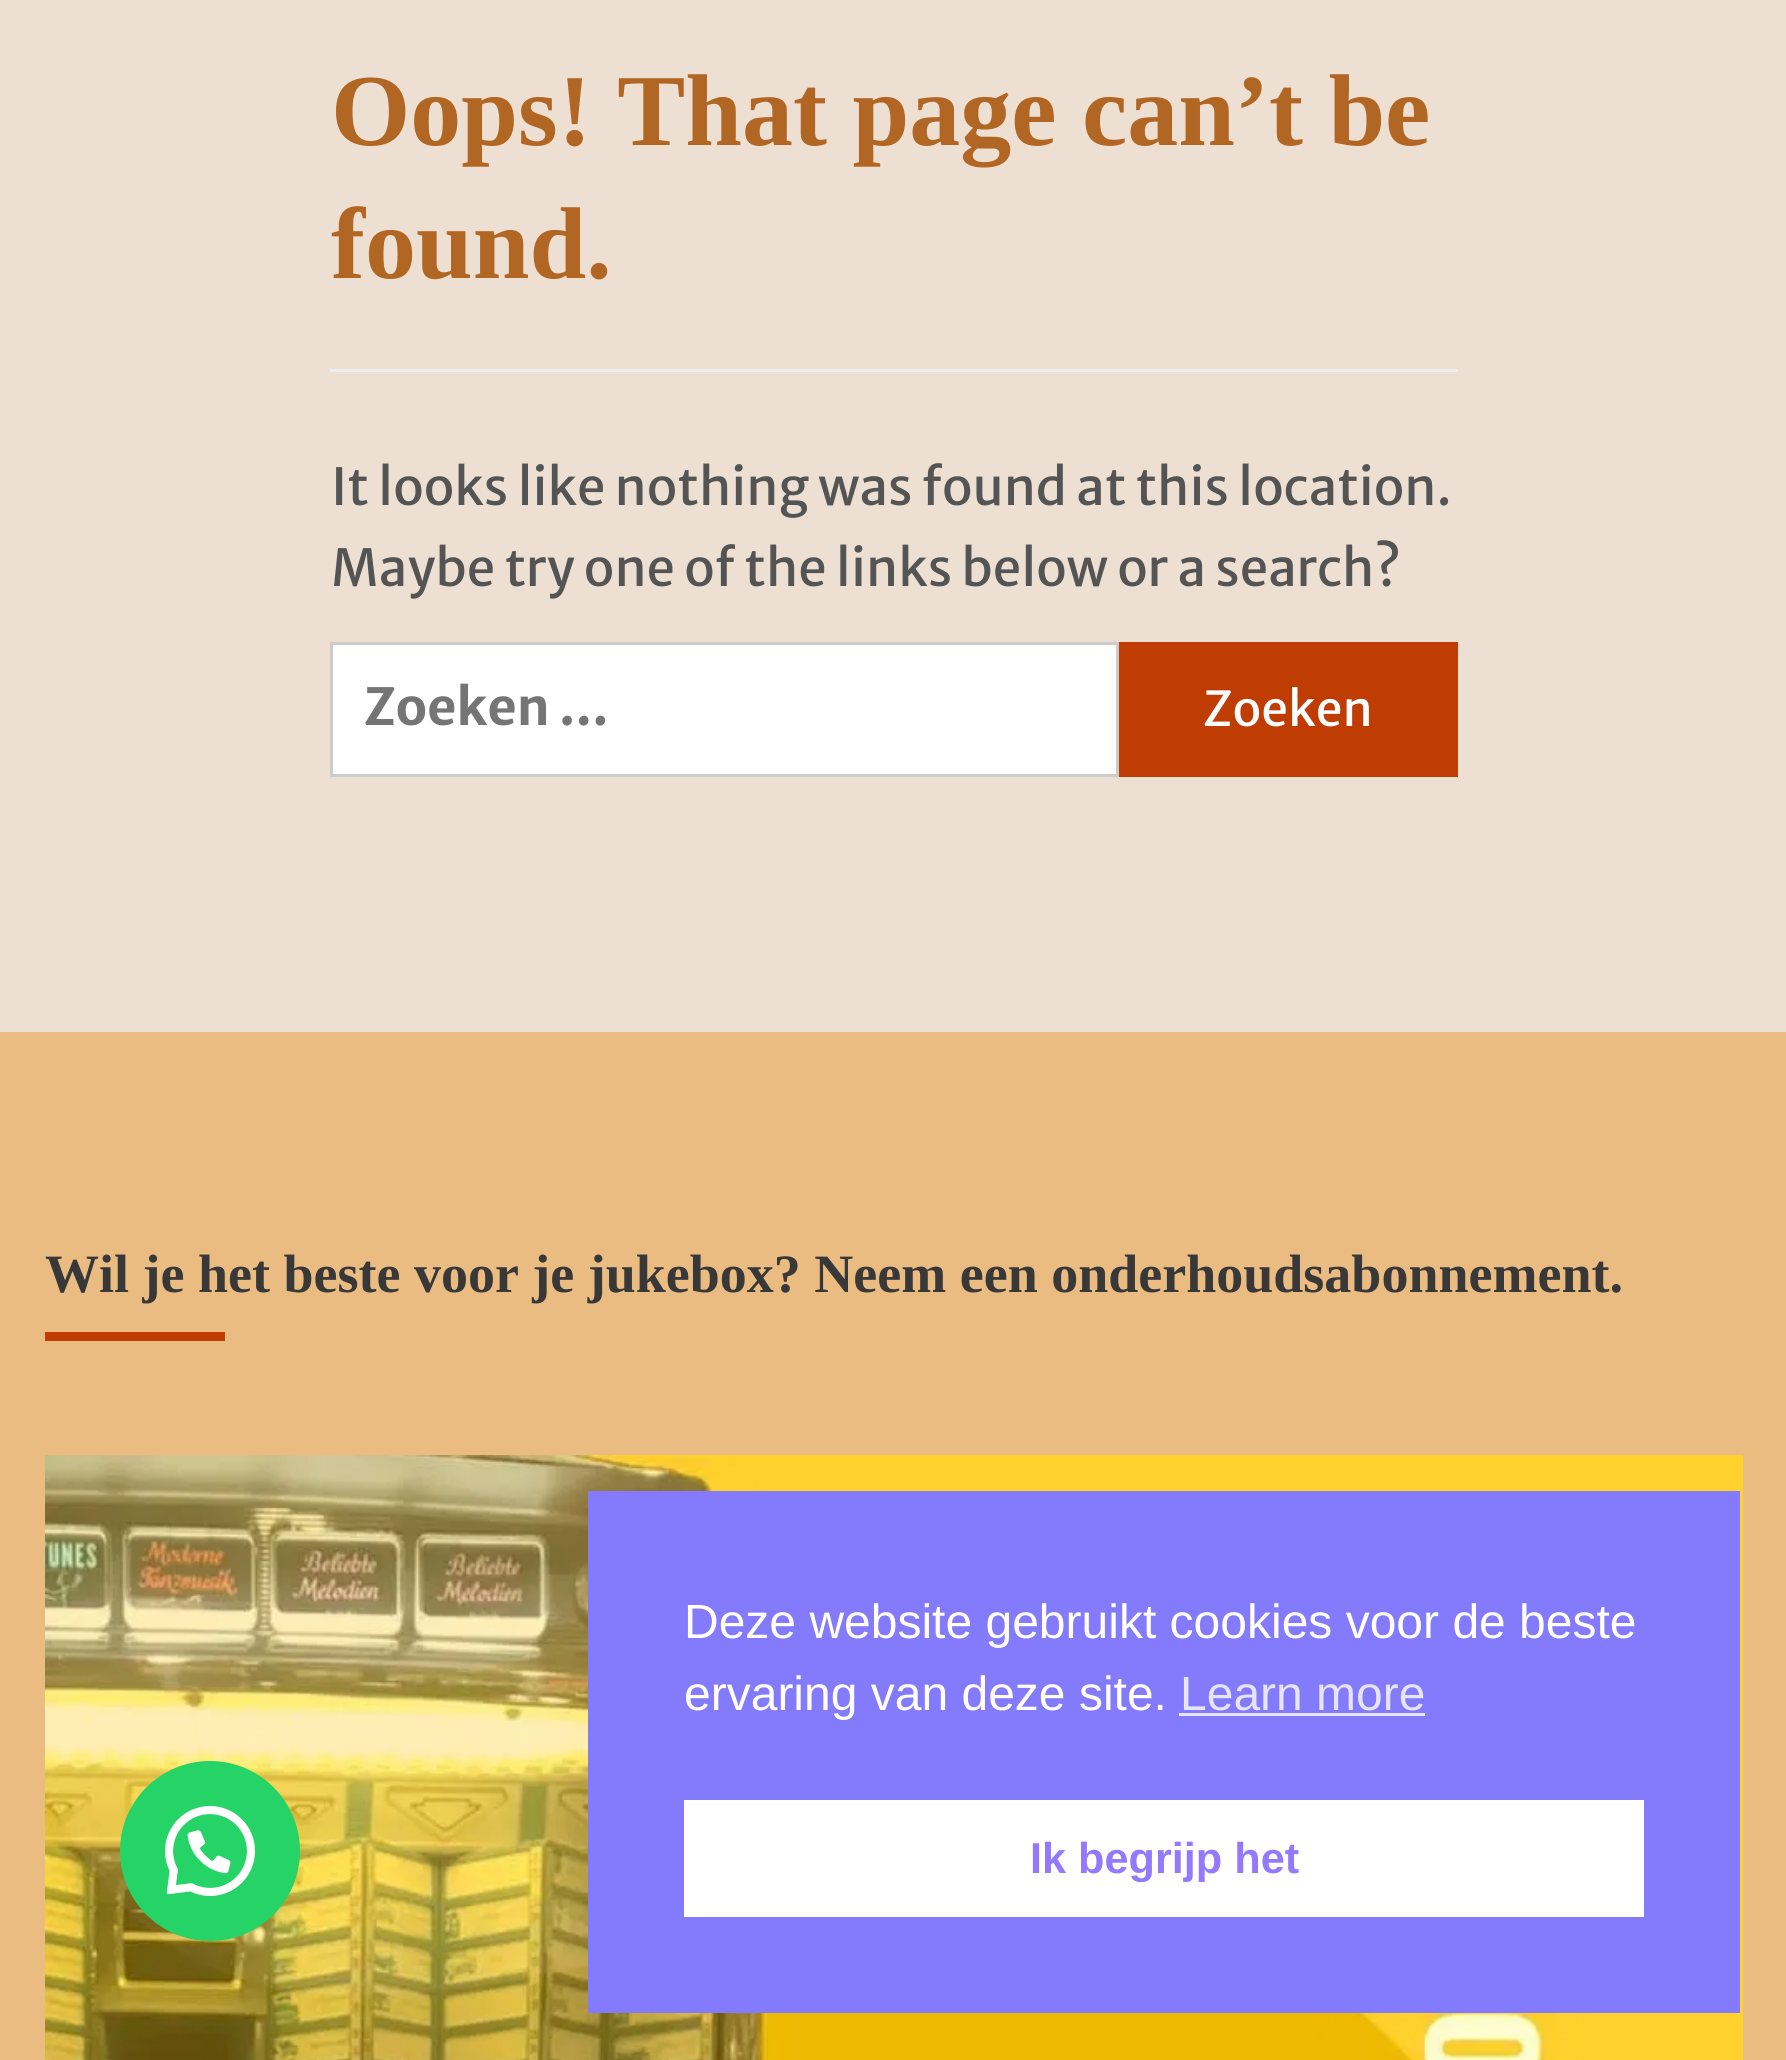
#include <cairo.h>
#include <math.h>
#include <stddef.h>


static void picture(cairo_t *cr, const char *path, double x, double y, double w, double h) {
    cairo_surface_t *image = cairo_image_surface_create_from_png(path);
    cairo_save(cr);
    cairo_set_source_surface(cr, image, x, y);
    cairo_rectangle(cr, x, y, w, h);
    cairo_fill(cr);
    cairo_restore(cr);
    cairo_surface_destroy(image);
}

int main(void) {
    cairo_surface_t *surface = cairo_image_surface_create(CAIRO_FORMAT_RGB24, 1786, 2060);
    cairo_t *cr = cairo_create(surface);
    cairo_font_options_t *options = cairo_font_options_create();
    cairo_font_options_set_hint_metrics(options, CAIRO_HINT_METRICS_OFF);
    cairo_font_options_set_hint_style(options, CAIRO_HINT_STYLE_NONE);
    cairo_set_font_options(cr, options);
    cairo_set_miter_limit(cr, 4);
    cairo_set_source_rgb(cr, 0.929, 0.878, 0.827);
    cairo_paint(cr);
    cairo_set_source_rgb(cr, 0.933, 0.933, 0.933);
    cairo_rectangle(cr, 330, 369, 1128, 3);
    cairo_fill(cr);
    cairo_select_font_face(cr, "Liberation Serif", CAIRO_FONT_SLANT_NORMAL, CAIRO_FONT_WEIGHT_BOLD);
    cairo_set_font_size(cr, 102);
    cairo_set_source_rgb(cr, 0.698, 0.4, 0.137);
    cairo_move_to(cr, 331, 145);
    cairo_show_text(cr, "Oops! That page can’t be");
    cairo_move_to(cr, 331, 278);
    cairo_show_text(cr, "found.");
    cairo_select_font_face(cr, "Merriweather Sans", CAIRO_FONT_SLANT_NORMAL, CAIRO_FONT_WEIGHT_NORMAL);
    cairo_set_font_size(cr, 51);
    cairo_set_source_rgb(cr, 0.329, 0.329, 0.329);
    cairo_move_to(cr, 331, 505);
    cairo_show_text(cr, "It looks like nothing was found at this location.");
    cairo_move_to(cr, 331, 586);
    cairo_show_text(cr, "Maybe try one of the links below or a search?");
    cairo_set_source_rgb(cr, 1, 1, 1);
    cairo_rectangle(cr, 331.5, 643.5, 786, 132);
    cairo_fill_preserve(cr);
    cairo_set_source_rgb(cr, 0.8, 0.8, 0.8);
    cairo_set_line_width(cr, 3);
    cairo_stroke(cr);
    cairo_select_font_face(cr, "Merriweather Sans", CAIRO_FONT_SLANT_NORMAL, CAIRO_FONT_WEIGHT_BOLD);
    cairo_set_source_rgb(cr, 0.459, 0.459, 0.459);
    cairo_move_to(cr, 364, 725);
    cairo_show_text(cr, "Zoeken …");
    cairo_set_source_rgb(cr, 0.749, 0.235, 0.012);
    cairo_rectangle(cr, 1119, 642, 339, 135);
    cairo_fill(cr);
    cairo_select_font_face(cr, "Merriweather Sans", CAIRO_FONT_SLANT_NORMAL, CAIRO_FONT_WEIGHT_NORMAL);
    cairo_set_font_size(cr, 48);
    cairo_set_source_rgb(cr, 1, 1, 1);
    cairo_move_to(cr, 1203, 726);
    cairo_show_text(cr, "Zoeken");
    cairo_set_source_rgb(cr, 0.918, 0.737, 0.506);
    cairo_rectangle(cr, 0, 1032, 1786, 1028);
    cairo_fill(cr);
    cairo_select_font_face(cr, "Liberation Serif", CAIRO_FONT_SLANT_NORMAL, CAIRO_FONT_WEIGHT_BOLD);
    cairo_set_font_size(cr, 54);
    cairo_set_source_rgb(cr, 0.22, 0.22, 0.22);
    cairo_move_to(cr, 45, 1292);
    cairo_show_text(cr, "Wil je het beste voor je jukebox? Neem een onderhoudsabonnement.");
    cairo_set_source_rgb(cr, 0.749, 0.235, 0.012);
    cairo_rectangle(cr, 45, 1332, 180, 9);
    cairo_fill(cr);
    picture(cr, "img1.png", 45, 1455, 1698, 605);
    cairo_set_source_rgb(cr, 0.145, 0.827, 0.4);
    cairo_arc(cr, 210, 1851, 90, 0, 2 * M_PI);
    cairo_fill(cr);
    picture(cr, "img2.png", 165, 1806, 90, 90);
    cairo_set_source_rgb(cr, 0.514, 0.478, 0.988);
    cairo_rectangle(cr, 588, 1491, 1152, 522);
    cairo_fill(cr);
    cairo_select_font_face(cr, "Liberation Sans", CAIRO_FONT_SLANT_NORMAL, CAIRO_FONT_WEIGHT_NORMAL);
    cairo_set_font_size(cr, 48);
    cairo_set_source_rgb(cr, 1, 1, 1);
    cairo_move_to(cr, 684, 1638);
    cairo_show_text(cr, "Deze website gebruikt cookies voor de beste");
    cairo_move_to(cr, 684, 1710);
    cairo_show_text(cr, "ervaring van deze site.");
    cairo_set_source_rgb(cr, 0.902, 0.894, 0.996);
    cairo_move_to(cr, 1180, 1710);
    cairo_show_text(cr, "Learn more");
    cairo_rectangle(cr, 1179, 1713, 246, 3);
    cairo_fill(cr);
    cairo_set_source_rgb(cr, 1, 1, 1);
    cairo_rectangle(cr, 684, 1800, 960, 117);
    cairo_fill(cr);
    cairo_select_font_face(cr, "Liberation Sans", CAIRO_FONT_SLANT_NORMAL, CAIRO_FONT_WEIGHT_BOLD);
    cairo_set_font_size(cr, 43.25);
    cairo_set_source_rgb(cr, 0.576, 0.478, 0.988);
    cairo_move_to(cr, 1030, 1873);
    cairo_show_text(cr, "Ik begrijp het");
    cairo_surface_write_to_png(surface, "page.png");
    cairo_font_options_destroy(options);
    cairo_destroy(cr);
    cairo_surface_destroy(surface);
    return 0;
}
